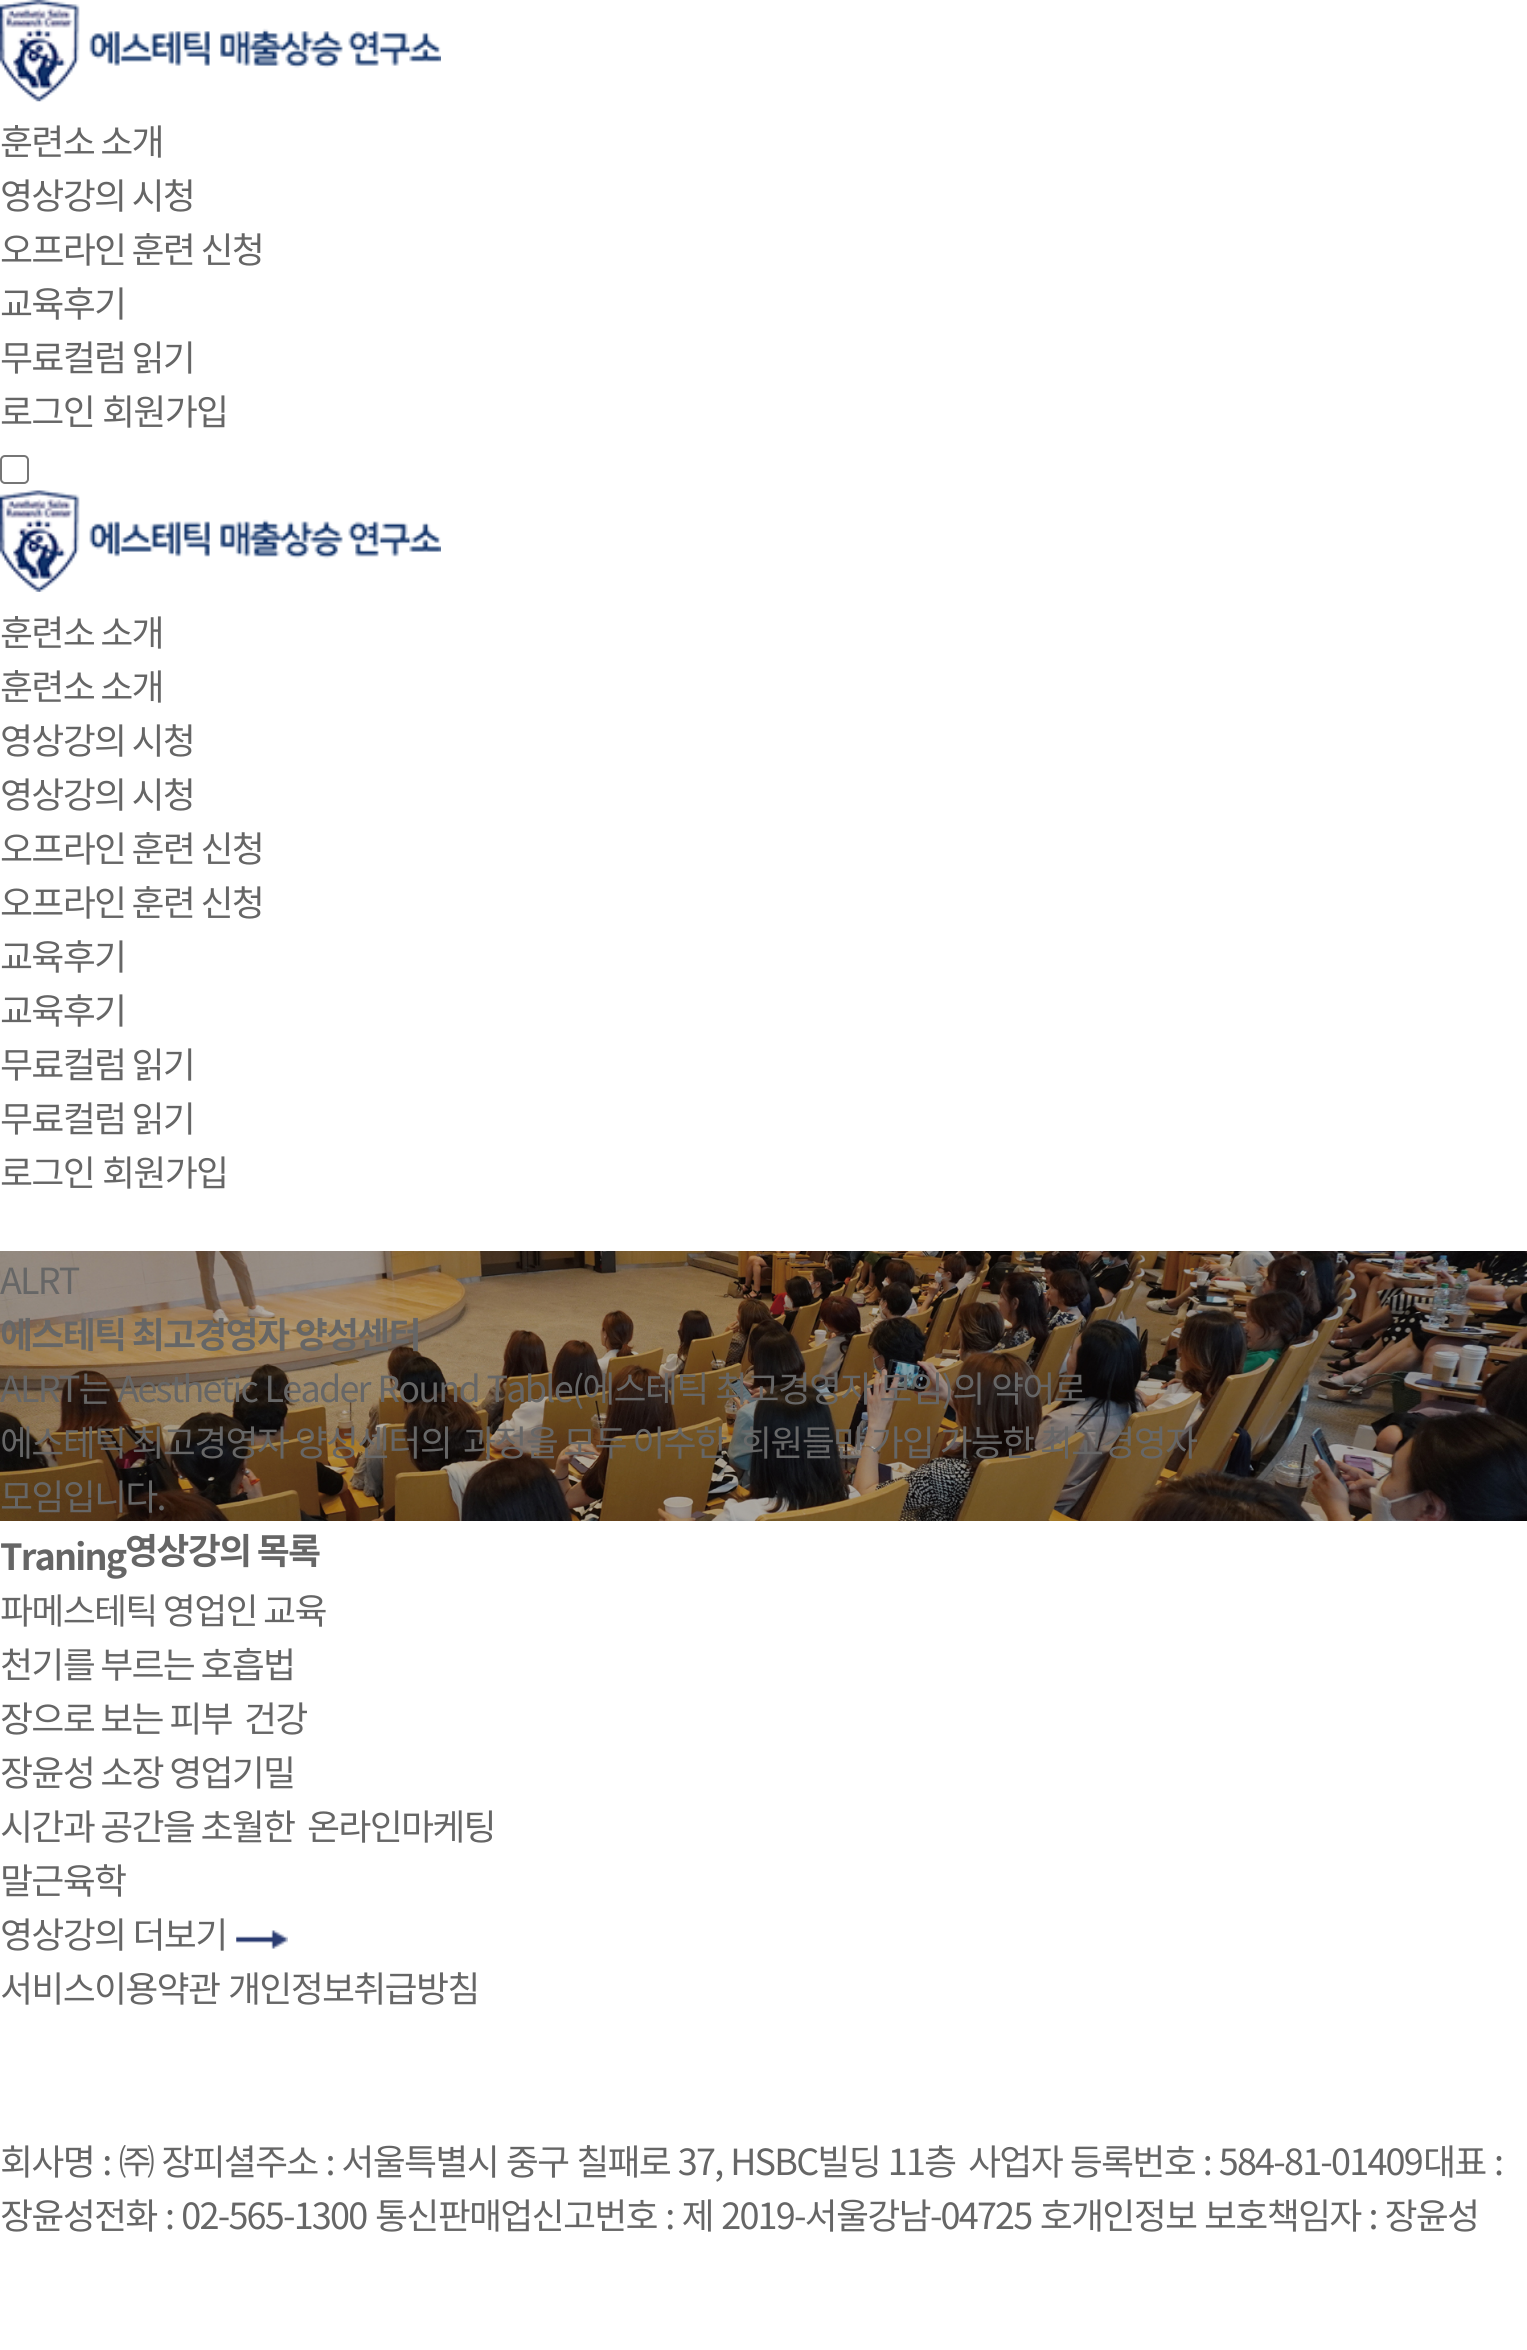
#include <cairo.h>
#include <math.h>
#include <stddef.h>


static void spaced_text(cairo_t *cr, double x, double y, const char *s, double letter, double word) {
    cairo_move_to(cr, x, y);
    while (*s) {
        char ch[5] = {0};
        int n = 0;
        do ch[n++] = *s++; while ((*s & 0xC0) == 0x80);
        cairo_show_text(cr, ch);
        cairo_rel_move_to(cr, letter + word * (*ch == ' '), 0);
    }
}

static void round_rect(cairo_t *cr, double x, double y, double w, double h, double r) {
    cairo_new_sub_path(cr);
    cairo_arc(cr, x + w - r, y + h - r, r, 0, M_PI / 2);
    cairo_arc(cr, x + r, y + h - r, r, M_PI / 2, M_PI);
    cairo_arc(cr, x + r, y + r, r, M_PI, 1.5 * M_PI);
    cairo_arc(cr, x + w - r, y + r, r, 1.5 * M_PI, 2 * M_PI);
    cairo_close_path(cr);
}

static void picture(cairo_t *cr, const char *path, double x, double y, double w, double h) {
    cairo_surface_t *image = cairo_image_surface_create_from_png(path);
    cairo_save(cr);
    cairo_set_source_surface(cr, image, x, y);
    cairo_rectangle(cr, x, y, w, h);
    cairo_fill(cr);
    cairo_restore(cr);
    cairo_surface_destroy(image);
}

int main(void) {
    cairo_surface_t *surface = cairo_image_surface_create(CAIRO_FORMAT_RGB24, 1527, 2350);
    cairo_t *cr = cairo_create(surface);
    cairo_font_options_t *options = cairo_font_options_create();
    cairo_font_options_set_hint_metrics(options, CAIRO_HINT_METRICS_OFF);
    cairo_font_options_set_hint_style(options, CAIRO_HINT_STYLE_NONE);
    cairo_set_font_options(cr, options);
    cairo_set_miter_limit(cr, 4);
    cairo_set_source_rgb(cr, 1, 1, 1);
    cairo_paint(cr);
    picture(cr, "img1.png", 0, 0, 441, 102);
    cairo_select_font_face(cr, "Noto Sans KR", CAIRO_FONT_SLANT_NORMAL, CAIRO_FONT_WEIGHT_NORMAL);
    cairo_set_font_size(cr, 36);
    cairo_set_source_rgb(cr, 0.4, 0.4, 0.4);
    spaced_text(cr, 0, 155, "훈련소 소개", -1.8, 0);
    spaced_text(cr, 0, 209, "영상강의 시청", -1.8, 0);
    spaced_text(cr, 0, 263, "오프라인 훈련 신청", -1.8, 0);
    spaced_text(cr, 0, 317, "교육후기", -1.8, 0);
    spaced_text(cr, 0, 371, "무료컬럼 읽기", -1.8, 0);
    spaced_text(cr, 0, 425, "로그인", -1.8, 0);
    spaced_text(cr, 102, 425, "회원가입", -1.8, 0);
    round_rect(cr, 1, 456, 27, 27, 4);
    cairo_set_source_rgb(cr, 0.463, 0.463, 0.463);
    cairo_stroke(cr);
    picture(cr, "img2.png", 0, 490, 441, 102);
    cairo_set_source_rgb(cr, 0.4, 0.4, 0.4);
    spaced_text(cr, 0, 646, "훈련소 소개", -1.8, 0);
    spaced_text(cr, 0, 700, "훈련소 소개", -1.8, 0);
    spaced_text(cr, 0, 754, "영상강의 시청", -1.8, 0);
    spaced_text(cr, 0, 808, "영상강의 시청", -1.8, 0);
    spaced_text(cr, 0, 862, "오프라인 훈련 신청", -1.8, 0);
    spaced_text(cr, 0, 916, "오프라인 훈련 신청", -1.8, 0);
    spaced_text(cr, 0, 970, "교육후기", -1.8, 0);
    spaced_text(cr, 0, 1024, "교육후기", -1.8, 0);
    spaced_text(cr, 0, 1078, "무료컬럼 읽기", -1.8, 0);
    spaced_text(cr, 0, 1132, "무료컬럼 읽기", -1.8, 0);
    spaced_text(cr, 0, 1186, "로그인", -1.8, 0);
    spaced_text(cr, 102, 1186, "회원가입", -1.8, 0);
    picture(cr, "img3.png", 0, 1251, 1527, 270);
    spaced_text(cr, 0, 1294, "ALRT", -1.8, 0);
    cairo_select_font_face(cr, "Noto Sans KR", CAIRO_FONT_SLANT_NORMAL, CAIRO_FONT_WEIGHT_BOLD);
    spaced_text(cr, 0, 1348, "에스테틱 최고경영자 양성센터", -1.8, 0);
    cairo_select_font_face(cr, "Noto Sans KR", CAIRO_FONT_SLANT_NORMAL, CAIRO_FONT_WEIGHT_NORMAL);
    spaced_text(cr, 0, 1402, "ALRT는 Aesthetic Leader Round Table(에스테틱 최고경영자 모임)의 약어로", -1.8, 1.25);
    spaced_text(cr, 0, 1456, "에스테틱 최고경영자 양성센터의", -1.8, 0);
    spaced_text(cr, 463, 1456, "과정을 모두 이수한", -1.8, 0);
    spaced_text(cr, 739, 1456, "회원들만 가입 가능한 최고경영자", -1.8, 0);
    spaced_text(cr, 0, 1510, "모임입니다.", -1.8, 0);
    cairo_select_font_face(cr, "Noto Sans KR", CAIRO_FONT_SLANT_NORMAL, CAIRO_FONT_WEIGHT_BOLD);
    spaced_text(cr, 0, 1570, "Traning", -1.8, 0);
    spaced_text(cr, 125, 1564, "영상강의 목록", -1.8, 0);
    cairo_select_font_face(cr, "Noto Sans KR", CAIRO_FONT_SLANT_NORMAL, CAIRO_FONT_WEIGHT_NORMAL);
    spaced_text(cr, 0, 1624, "파메스테틱 영업인 교육", -1.8, 0);
    spaced_text(cr, 0, 1678, "천기를 부르는 호흡법", -1.8, 0);
    spaced_text(cr, 0, 1732, "장으로 보는 피부", -1.8, 0);
    spaced_text(cr, 244, 1732, "건강", -1.8, 0);
    spaced_text(cr, 0, 1786, "장윤성 소장 영업기밀", -1.8, 0);
    spaced_text(cr, 0, 1840, "시간과 공간을 초월한", -1.8, 0);
    spaced_text(cr, 307, 1840, "온라인마케팅", -1.8, 0);
    spaced_text(cr, 0, 1894, "말근육학", -1.8, 0);
    spaced_text(cr, 0, 1948, "영상강의 더보기", -1.8, 1);
    picture(cr, "img4.png", 236, 1930, 52, 19);
    spaced_text(cr, 0, 2002, "서비스이용약관", -1.8, 0);
    spaced_text(cr, 228, 2002, "개인정보취급방침", -1.8, 0);
    spaced_text(cr, 0, 2175, "회사명 : ㈜ 장피셜", -1.8, 2);
    spaced_text(cr, 255, 2175, "주소 : 서울특별시 중구 칠패로 37, HSBC빌딩 11층", -1.8, 1.5);
    spaced_text(cr, 968, 2175, "사업자 등록번호 : 584-81-01409", -1.8, 1.5);
    spaced_text(cr, 1423, 2175, "대표 :", -1.8, 2);
    spaced_text(cr, 0, 2229, "장윤성", -1.8, 0);
    spaced_text(cr, 94, 2229, "전화 : 02-565-1300", -1.8, 2);
    spaced_text(cr, 375, 2229, "통신판매업신고번호 : 제 2019-서울강남-04725 호", -1.8, 2);
    spaced_text(cr, 1071, 2229, "개인정보 보호책임자 : 장윤성", -1.8, 1.5);
    cairo_surface_write_to_png(surface, "page.png");
    cairo_font_options_destroy(options);
    cairo_destroy(cr);
    cairo_surface_destroy(surface);
    return 0;
}
